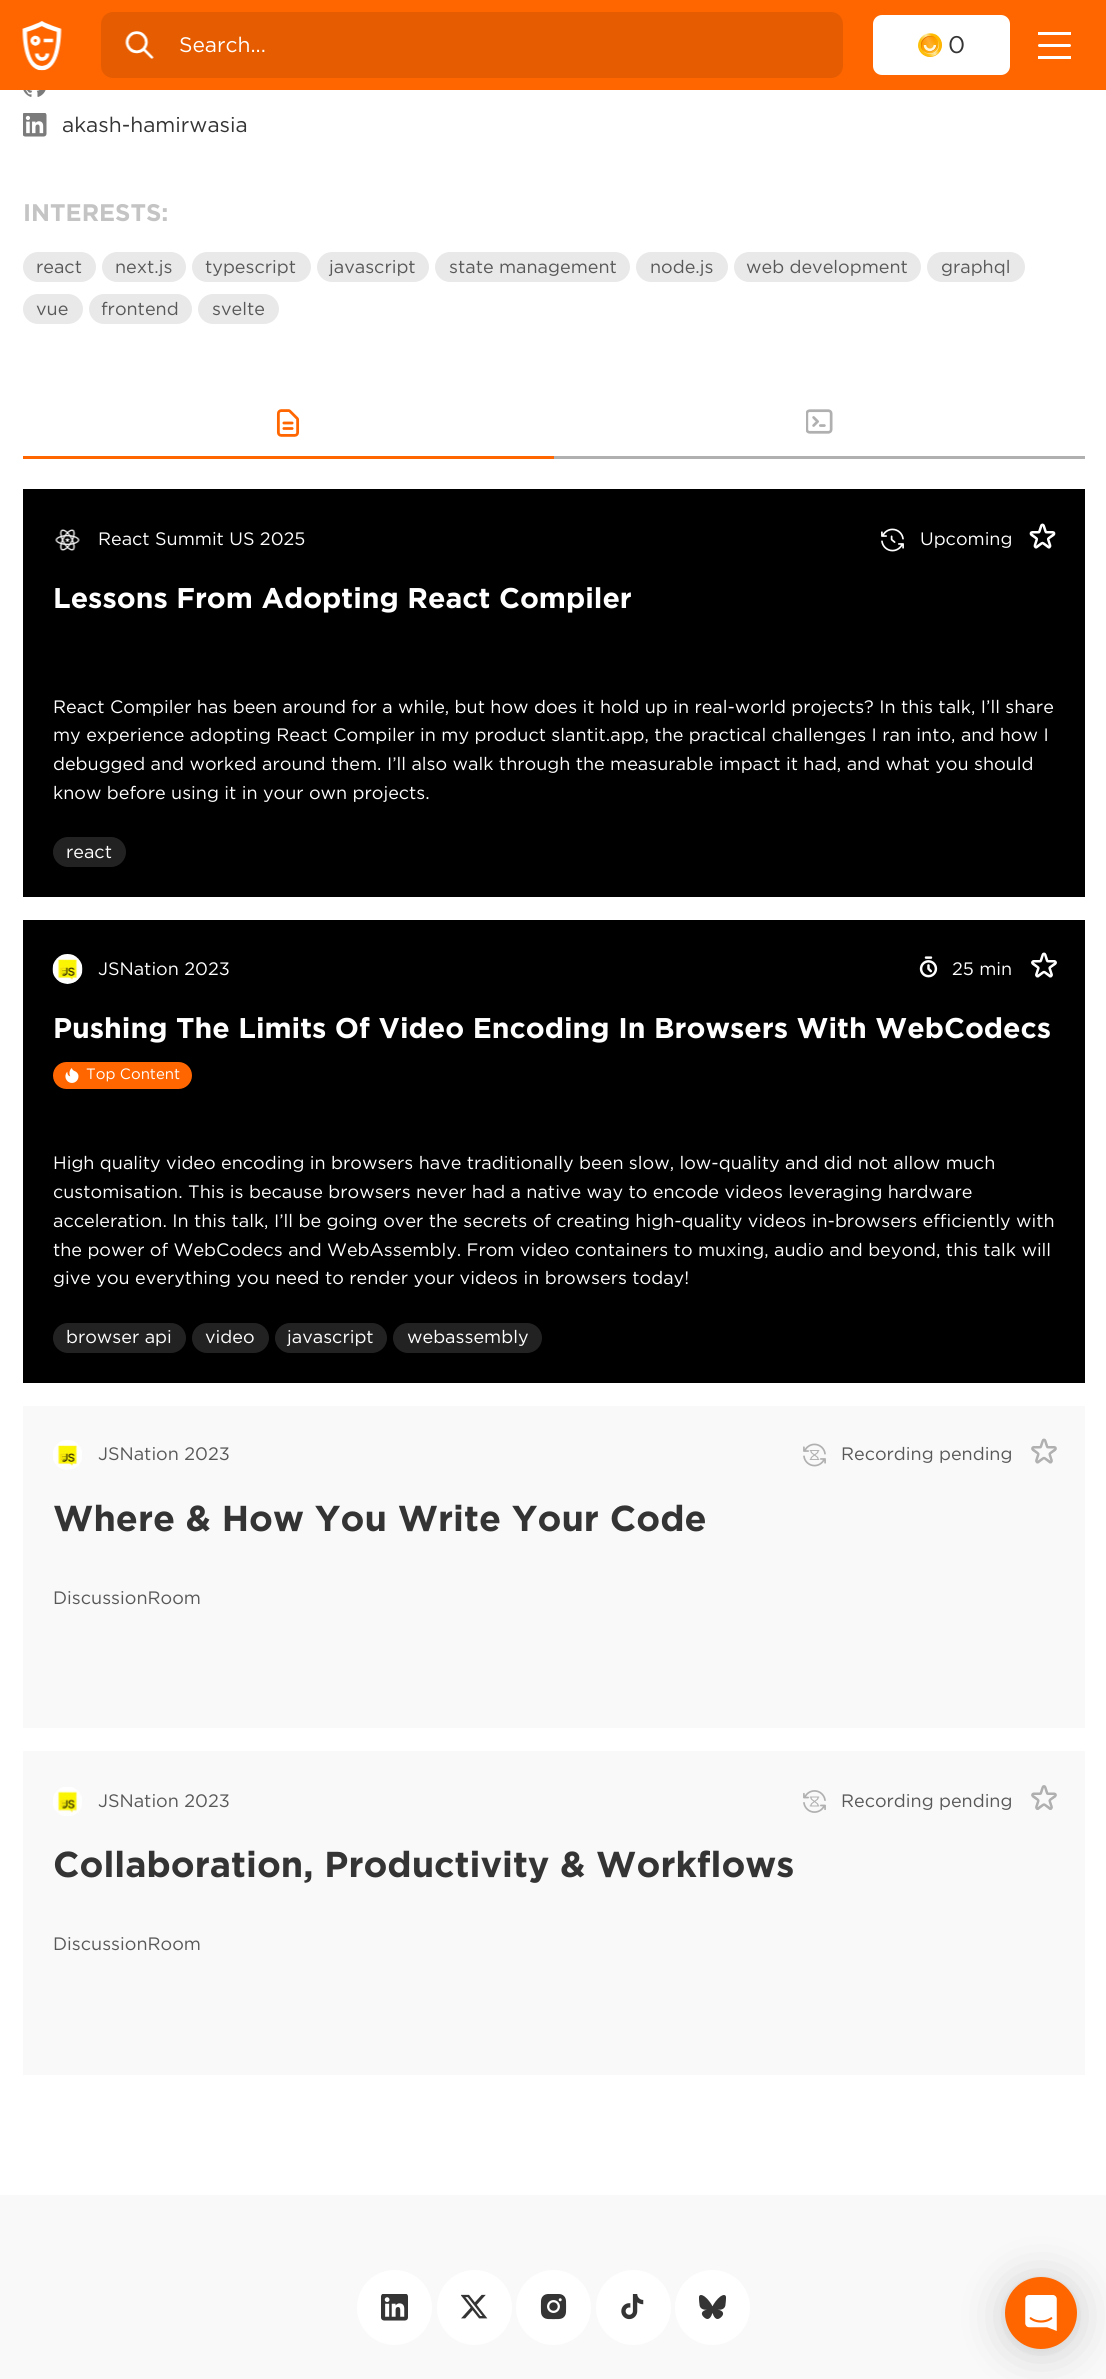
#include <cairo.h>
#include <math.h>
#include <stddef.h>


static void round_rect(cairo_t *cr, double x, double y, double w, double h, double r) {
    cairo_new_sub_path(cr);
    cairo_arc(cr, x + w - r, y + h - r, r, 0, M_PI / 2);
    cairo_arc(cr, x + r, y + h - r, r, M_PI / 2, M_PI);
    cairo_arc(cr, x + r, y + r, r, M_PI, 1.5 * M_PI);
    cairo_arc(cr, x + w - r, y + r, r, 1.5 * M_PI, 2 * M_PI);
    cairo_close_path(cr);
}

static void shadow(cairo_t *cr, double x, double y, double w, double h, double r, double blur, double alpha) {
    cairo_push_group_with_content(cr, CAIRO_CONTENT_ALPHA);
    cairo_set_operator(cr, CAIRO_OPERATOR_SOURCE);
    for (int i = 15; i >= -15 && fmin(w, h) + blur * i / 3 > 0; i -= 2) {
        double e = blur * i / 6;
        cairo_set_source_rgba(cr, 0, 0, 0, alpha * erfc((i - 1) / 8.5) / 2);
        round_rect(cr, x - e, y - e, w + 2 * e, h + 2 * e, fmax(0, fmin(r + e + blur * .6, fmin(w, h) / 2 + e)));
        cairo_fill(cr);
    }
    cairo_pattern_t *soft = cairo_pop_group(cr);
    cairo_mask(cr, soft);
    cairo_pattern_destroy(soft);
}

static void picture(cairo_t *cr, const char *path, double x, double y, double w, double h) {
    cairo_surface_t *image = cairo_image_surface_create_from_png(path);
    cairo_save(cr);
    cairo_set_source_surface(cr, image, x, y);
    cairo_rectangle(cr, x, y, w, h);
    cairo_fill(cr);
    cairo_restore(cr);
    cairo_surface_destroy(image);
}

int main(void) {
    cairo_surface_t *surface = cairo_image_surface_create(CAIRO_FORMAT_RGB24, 1106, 2379);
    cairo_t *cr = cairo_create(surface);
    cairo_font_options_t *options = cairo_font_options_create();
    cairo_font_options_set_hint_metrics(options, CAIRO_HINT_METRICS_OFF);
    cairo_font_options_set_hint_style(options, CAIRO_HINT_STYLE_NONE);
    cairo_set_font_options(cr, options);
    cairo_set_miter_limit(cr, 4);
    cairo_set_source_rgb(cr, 0.976, 0.976, 0.976);
    cairo_paint(cr);
    cairo_set_source_rgb(cr, 1, 0.4, 0);
    cairo_rectangle(cr, 0, 0, 1106, 90);
    cairo_fill(cr);
    picture(cr, "img1.png", 22, 21, 40, 50);
    cairo_set_source_rgb(cr, 0.902, 0.361, 0);
    round_rect(cr, 101, 12, 742, 66, 12);
    cairo_fill(cr);
    picture(cr, "img2.png", 125, 31, 29, 28);
    cairo_select_font_face(cr, "Gotham", CAIRO_FONT_SLANT_NORMAL, CAIRO_FONT_WEIGHT_NORMAL);
    cairo_set_font_size(cr, 21);
    cairo_set_source_rgb(cr, 1, 1, 1);
    cairo_move_to(cr, 179, 52);
    cairo_show_text(cr, "Search...");
    round_rect(cr, 873, 15, 137, 60, 9);
    cairo_fill(cr);
    picture(cr, "img3.png", 918, 33, 24, 24);
    cairo_set_font_size(cr, 24);
    cairo_set_source_rgb(cr, 0.204, 0.204, 0.204);
    cairo_move_to(cr, 948, 53);
    cairo_show_text(cr, "0");
    cairo_set_source_rgb(cr, 1, 1, 1);
    round_rect(cr, 1038, 44, 33, 3, 1.5);
    cairo_fill(cr);
    cairo_rectangle(cr, 1038, 32, 33, 3);
    cairo_fill(cr);
    cairo_rectangle(cr, 1038, 56, 33, 3);
    cairo_fill(cr);
    cairo_rectangle(cr, 0, 90, 1106, 2105);
    cairo_fill(cr);
    picture(cr, "img4.png", 23, 90, 23, 7);
    picture(cr, "img5.png", 23, 113, 24, 24);
    cairo_set_font_size(cr, 21);
    cairo_set_source_rgb(cr, 0.204, 0.204, 0.204);
    cairo_move_to(cr, 62, 132);
    cairo_show_text(cr, "akash-hamirwasia");
    cairo_select_font_face(cr, "Gotham", CAIRO_FONT_SLANT_NORMAL, CAIRO_FONT_WEIGHT_BOLD);
    cairo_set_font_size(cr, 24);
    cairo_set_source_rgb(cr, 0.769, 0.769, 0.769);
    cairo_move_to(cr, 23, 221);
    cairo_show_text(cr, "INTERESTS:");
    cairo_set_source_rgb(cr, 0.914, 0.914, 0.914);
    round_rect(cr, 23, 252, 73, 30, 15);
    cairo_fill(cr);
    cairo_select_font_face(cr, "Gotham", CAIRO_FONT_SLANT_NORMAL, CAIRO_FONT_WEIGHT_NORMAL);
    cairo_set_font_size(cr, 18);
    cairo_set_source_rgb(cr, 0.345, 0.345, 0.345);
    cairo_move_to(cr, 36, 273);
    cairo_show_text(cr, "react");
    cairo_set_source_rgb(cr, 0.914, 0.914, 0.914);
    round_rect(cr, 102, 252, 84, 30, 15);
    cairo_fill(cr);
    cairo_set_source_rgb(cr, 0.345, 0.345, 0.345);
    cairo_move_to(cr, 115, 273);
    cairo_show_text(cr, "next.js");
    cairo_set_source_rgb(cr, 0.914, 0.914, 0.914);
    round_rect(cr, 192, 252, 119, 30, 15);
    cairo_fill(cr);
    cairo_set_source_rgb(cr, 0.345, 0.345, 0.345);
    cairo_move_to(cr, 205, 273);
    cairo_show_text(cr, "typescript");
    cairo_set_source_rgb(cr, 0.914, 0.914, 0.914);
    round_rect(cr, 317, 252, 112, 30, 15);
    cairo_fill(cr);
    cairo_set_source_rgb(cr, 0.345, 0.345, 0.345);
    cairo_move_to(cr, 329, 273);
    cairo_show_text(cr, "javascript");
    cairo_set_source_rgb(cr, 0.914, 0.914, 0.914);
    round_rect(cr, 435, 252, 195, 30, 15);
    cairo_fill(cr);
    cairo_set_source_rgb(cr, 0.345, 0.345, 0.345);
    cairo_move_to(cr, 449, 273);
    cairo_show_text(cr, "state management");
    cairo_set_source_rgb(cr, 0.914, 0.914, 0.914);
    round_rect(cr, 636, 252, 92, 30, 15);
    cairo_fill(cr);
    cairo_set_source_rgb(cr, 0.345, 0.345, 0.345);
    cairo_move_to(cr, 650, 273);
    cairo_show_text(cr, "node.js");
    cairo_set_source_rgb(cr, 0.914, 0.914, 0.914);
    round_rect(cr, 734, 252, 187, 30, 15);
    cairo_fill(cr);
    cairo_set_source_rgb(cr, 0.345, 0.345, 0.345);
    cairo_move_to(cr, 746, 273);
    cairo_show_text(cr, "web development");
    cairo_set_source_rgb(cr, 0.914, 0.914, 0.914);
    round_rect(cr, 927, 252, 98, 30, 15);
    cairo_fill(cr);
    cairo_set_source_rgb(cr, 0.345, 0.345, 0.345);
    cairo_move_to(cr, 941, 273);
    cairo_show_text(cr, "graphql");
    cairo_set_source_rgb(cr, 0.914, 0.914, 0.914);
    round_rect(cr, 23, 294, 60, 30, 15);
    cairo_fill(cr);
    cairo_set_source_rgb(cr, 0.345, 0.345, 0.345);
    cairo_move_to(cr, 36, 315);
    cairo_show_text(cr, "vue");
    cairo_set_source_rgb(cr, 0.914, 0.914, 0.914);
    round_rect(cr, 89, 294, 103, 30, 15);
    cairo_fill(cr);
    cairo_set_source_rgb(cr, 0.345, 0.345, 0.345);
    cairo_move_to(cr, 101, 315);
    cairo_show_text(cr, "frontend");
    cairo_set_source_rgb(cr, 0.914, 0.914, 0.914);
    round_rect(cr, 198, 294, 81, 30, 15);
    cairo_fill(cr);
    cairo_set_source_rgb(cr, 0.345, 0.345, 0.345);
    cairo_move_to(cr, 212, 315);
    cairo_show_text(cr, "svelte");
    cairo_set_source_rgb(cr, 0.69, 0.69, 0.69);
    cairo_rectangle(cr, 554, 456, 531, 3);
    cairo_fill(cr);
    picture(cr, "img6.png", 276, 409, 24, 28);
    cairo_set_source_rgb(cr, 1, 0.4, 0);
    cairo_rectangle(cr, 23, 456, 531, 3);
    cairo_fill(cr);
    picture(cr, "img7.png", 806, 409, 27, 25);
    cairo_set_source_rgb(cr, 0, 0, 0);
    cairo_rectangle(cr, 23, 489, 1062, 408);
    cairo_fill(cr);
    picture(cr, "img8.png", 55, 529, 25, 22);
    cairo_set_source_rgb(cr, 1, 1, 1);
    cairo_move_to(cr, 98, 545);
    cairo_show_text(cr, "React Summit US 2025");
    picture(cr, "img9.png", 881, 528, 23, 24);
    cairo_move_to(cr, 920, 545);
    cairo_show_text(cr, "Upcoming");
    picture(cr, "img10.png", 1029, 523, 27, 26);
    cairo_select_font_face(cr, "Gotham", CAIRO_FONT_SLANT_NORMAL, CAIRO_FONT_WEIGHT_BOLD);
    cairo_set_font_size(cr, 28.5);
    cairo_move_to(cr, 53, 608);
    cairo_show_text(cr, "Lessons From Adopting React Compiler");
    cairo_select_font_face(cr, "Gotham", CAIRO_FONT_SLANT_NORMAL, CAIRO_FONT_WEIGHT_NORMAL);
    cairo_set_font_size(cr, 18);
    cairo_move_to(cr, 53, 713);
    cairo_show_text(cr, "React Compiler has been around for a while, but how does it hold up in real-world projects? In this talk, I’ll share");
    cairo_move_to(cr, 53, 741);
    cairo_show_text(cr, "my experience adopting React Compiler in my product slantit.app, the practical challenges I ran into, and how I");
    cairo_move_to(cr, 53, 770);
    cairo_show_text(cr, "debugged and worked around them. I’ll also walk through the measurable impact it had, and what you should");
    cairo_move_to(cr, 53, 799);
    cairo_show_text(cr, "know before using it in your own projects.");
    cairo_set_source_rgb(cr, 0.133, 0.133, 0.133);
    round_rect(cr, 53, 837, 73, 30, 15);
    cairo_fill(cr);
    cairo_set_source_rgb(cr, 1, 1, 1);
    cairo_move_to(cr, 66, 858);
    cairo_show_text(cr, "react");
    cairo_set_source_rgb(cr, 0, 0, 0);
    cairo_rectangle(cr, 23, 920, 1062, 463);
    cairo_fill(cr);
    picture(cr, "img11.png", 52, 954, 31, 30);
    cairo_set_source_rgb(cr, 1, 1, 1);
    cairo_move_to(cr, 98, 975);
    cairo_show_text(cr, "JSNation 2023");
    picture(cr, "img12.png", 919, 956, 19, 22);
    cairo_move_to(cr, 952, 975);
    cairo_show_text(cr, "25 min");
    picture(cr, "img13.png", 1031, 952, 26, 26);
    cairo_select_font_face(cr, "Gotham", CAIRO_FONT_SLANT_NORMAL, CAIRO_FONT_WEIGHT_BOLD);
    cairo_set_font_size(cr, 28.5);
    cairo_move_to(cr, 53, 1038);
    cairo_show_text(cr, "Pushing The Limits Of Video Encoding In Browsers With WebCodecs");
    cairo_set_source_rgb(cr, 1, 0.4, 0);
    round_rect(cr, 53, 1062, 139, 27, 13.5);
    cairo_fill(cr);
    picture(cr, "img14.png", 65, 1068, 14, 15);
    cairo_select_font_face(cr, "Gotham", CAIRO_FONT_SLANT_NORMAL, CAIRO_FONT_WEIGHT_NORMAL);
    cairo_set_font_size(cr, 15);
    cairo_set_source_rgb(cr, 1, 1, 1);
    cairo_move_to(cr, 86, 1079);
    cairo_show_text(cr, "Top Content");
    cairo_set_font_size(cr, 18);
    cairo_move_to(cr, 53, 1169);
    cairo_show_text(cr, "High quality video encoding in browsers have traditionally been slow, low-quality and did not allow much");
    cairo_move_to(cr, 53, 1198);
    cairo_show_text(cr, "customisation. This is because browsers never had a native way to encode videos leveraging hardware");
    cairo_move_to(cr, 53, 1227);
    cairo_show_text(cr, "acceleration. In this talk, I’ll be going over the secrets of creating high-quality videos in-browsers efficiently with");
    cairo_move_to(cr, 53, 1256);
    cairo_show_text(cr, "the power of WebCodecs and WebAssembly. From video containers to muxing, audio and beyond, this talk will");
    cairo_move_to(cr, 53, 1284);
    cairo_show_text(cr, "give you everything you need to render your videos in browsers today!");
    cairo_set_source_rgb(cr, 0.133, 0.133, 0.133);
    round_rect(cr, 53, 1323, 133, 30, 15);
    cairo_fill(cr);
    cairo_set_source_rgb(cr, 1, 1, 1);
    cairo_move_to(cr, 66, 1343);
    cairo_show_text(cr, "browser api");
    cairo_set_source_rgb(cr, 0.133, 0.133, 0.133);
    round_rect(cr, 192, 1323, 77, 30, 15);
    cairo_fill(cr);
    cairo_set_source_rgb(cr, 1, 1, 1);
    cairo_move_to(cr, 205, 1343);
    cairo_show_text(cr, "video");
    cairo_set_source_rgb(cr, 0.133, 0.133, 0.133);
    round_rect(cr, 275, 1323, 112, 30, 15);
    cairo_fill(cr);
    cairo_set_source_rgb(cr, 1, 1, 1);
    cairo_move_to(cr, 287, 1343);
    cairo_show_text(cr, "javascript");
    cairo_set_source_rgb(cr, 0.133, 0.133, 0.133);
    round_rect(cr, 393, 1323, 149, 30, 15);
    cairo_fill(cr);
    cairo_set_source_rgb(cr, 1, 1, 1);
    cairo_move_to(cr, 407, 1343);
    cairo_show_text(cr, "webassembly");
    cairo_set_source_rgb(cr, 0.976, 0.976, 0.976);
    cairo_rectangle(cr, 23, 1406, 1062, 322);
    cairo_fill(cr);
    picture(cr, "img15.png", 53, 1440, 29, 30);
    cairo_set_source_rgb(cr, 0.345, 0.345, 0.345);
    cairo_move_to(cr, 98, 1460);
    cairo_show_text(cr, "JSNation 2023");
    picture(cr, "img16.png", 803, 1443, 23, 24);
    cairo_move_to(cr, 841, 1460);
    cairo_show_text(cr, "Recording pending");
    picture(cr, "img17.png", 1031, 1438, 26, 26);
    cairo_select_font_face(cr, "Gotham", CAIRO_FONT_SLANT_NORMAL, CAIRO_FONT_WEIGHT_BOLD);
    cairo_set_font_size(cr, 36);
    cairo_set_source_rgb(cr, 0.204, 0.204, 0.204);
    cairo_move_to(cr, 53, 1531);
    cairo_show_text(cr, "Where & How You Write Your Code");
    cairo_select_font_face(cr, "Gotham", CAIRO_FONT_SLANT_NORMAL, CAIRO_FONT_WEIGHT_NORMAL);
    cairo_set_font_size(cr, 18);
    cairo_set_source_rgb(cr, 0.345, 0.345, 0.345);
    cairo_move_to(cr, 53, 1604);
    cairo_show_text(cr, "DiscussionRoom");
    cairo_set_source_rgb(cr, 0.976, 0.976, 0.976);
    cairo_rectangle(cr, 23, 1751, 1062, 324);
    cairo_fill(cr);
    picture(cr, "img18.png", 53, 1787, 29, 29);
    cairo_set_source_rgb(cr, 0.345, 0.345, 0.345);
    cairo_move_to(cr, 98, 1807);
    cairo_show_text(cr, "JSNation 2023");
    picture(cr, "img19.png", 803, 1790, 23, 23);
    cairo_move_to(cr, 841, 1807);
    cairo_show_text(cr, "Recording pending");
    picture(cr, "img20.png", 1031, 1785, 26, 25);
    cairo_select_font_face(cr, "Gotham", CAIRO_FONT_SLANT_NORMAL, CAIRO_FONT_WEIGHT_BOLD);
    cairo_set_font_size(cr, 36);
    cairo_set_source_rgb(cr, 0.204, 0.204, 0.204);
    cairo_move_to(cr, 53, 1877);
    cairo_show_text(cr, "Collaboration, Productivity & Workflows");
    cairo_select_font_face(cr, "Gotham", CAIRO_FONT_SLANT_NORMAL, CAIRO_FONT_WEIGHT_NORMAL);
    cairo_set_font_size(cr, 18);
    cairo_set_source_rgb(cr, 0.345, 0.345, 0.345);
    cairo_move_to(cr, 53, 1950);
    cairo_show_text(cr, "DiscussionRoom");
    cairo_set_source_rgb(cr, 1, 1, 1);
    cairo_new_path(cr);
    cairo_arc(cr, 394.5, 2307.5, 37.5, 0, 2 * M_PI);
    cairo_fill(cr);
    picture(cr, "img21.png", 381, 2294, 27, 27);
    cairo_arc(cr, 474.5, 2307.5, 37.5, 0, 2 * M_PI);
    cairo_fill(cr);
    picture(cr, "img22.png", 461, 2294, 27, 25);
    cairo_arc(cr, 553.5, 2307.5, 37.5, 0, 2 * M_PI);
    cairo_fill(cr);
    picture(cr, "img23.png", 540, 2294, 27, 26);
    cairo_arc(cr, 633.5, 2307.5, 37.5, 0, 2 * M_PI);
    cairo_fill(cr);
    picture(cr, "img24.png", 621, 2294, 23, 26);
    cairo_arc(cr, 712.5, 2307.5, 37.5, 0, 2 * M_PI);
    cairo_fill(cr);
    picture(cr, "img25.png", 699, 2295, 27, 24);
    cairo_set_source_rgb(cr, 0, 0, 0);
    shadow(cr, 1005, 2280, 72, 72, 36, 24, 0.16);
    shadow(cr, 1005, 2279, 72, 72, 36, 4.5, 0.06);
    cairo_set_source_rgb(cr, 1, 0.4, 0);
    cairo_arc(cr, 1041, 2313, 36, 0, 2 * M_PI);
    cairo_fill(cr);
    picture(cr, "img26.png", 1025, 2295, 32, 36);
    cairo_surface_write_to_png(surface, "page.png");
    cairo_font_options_destroy(options);
    cairo_destroy(cr);
    cairo_surface_destroy(surface);
    return 0;
}
